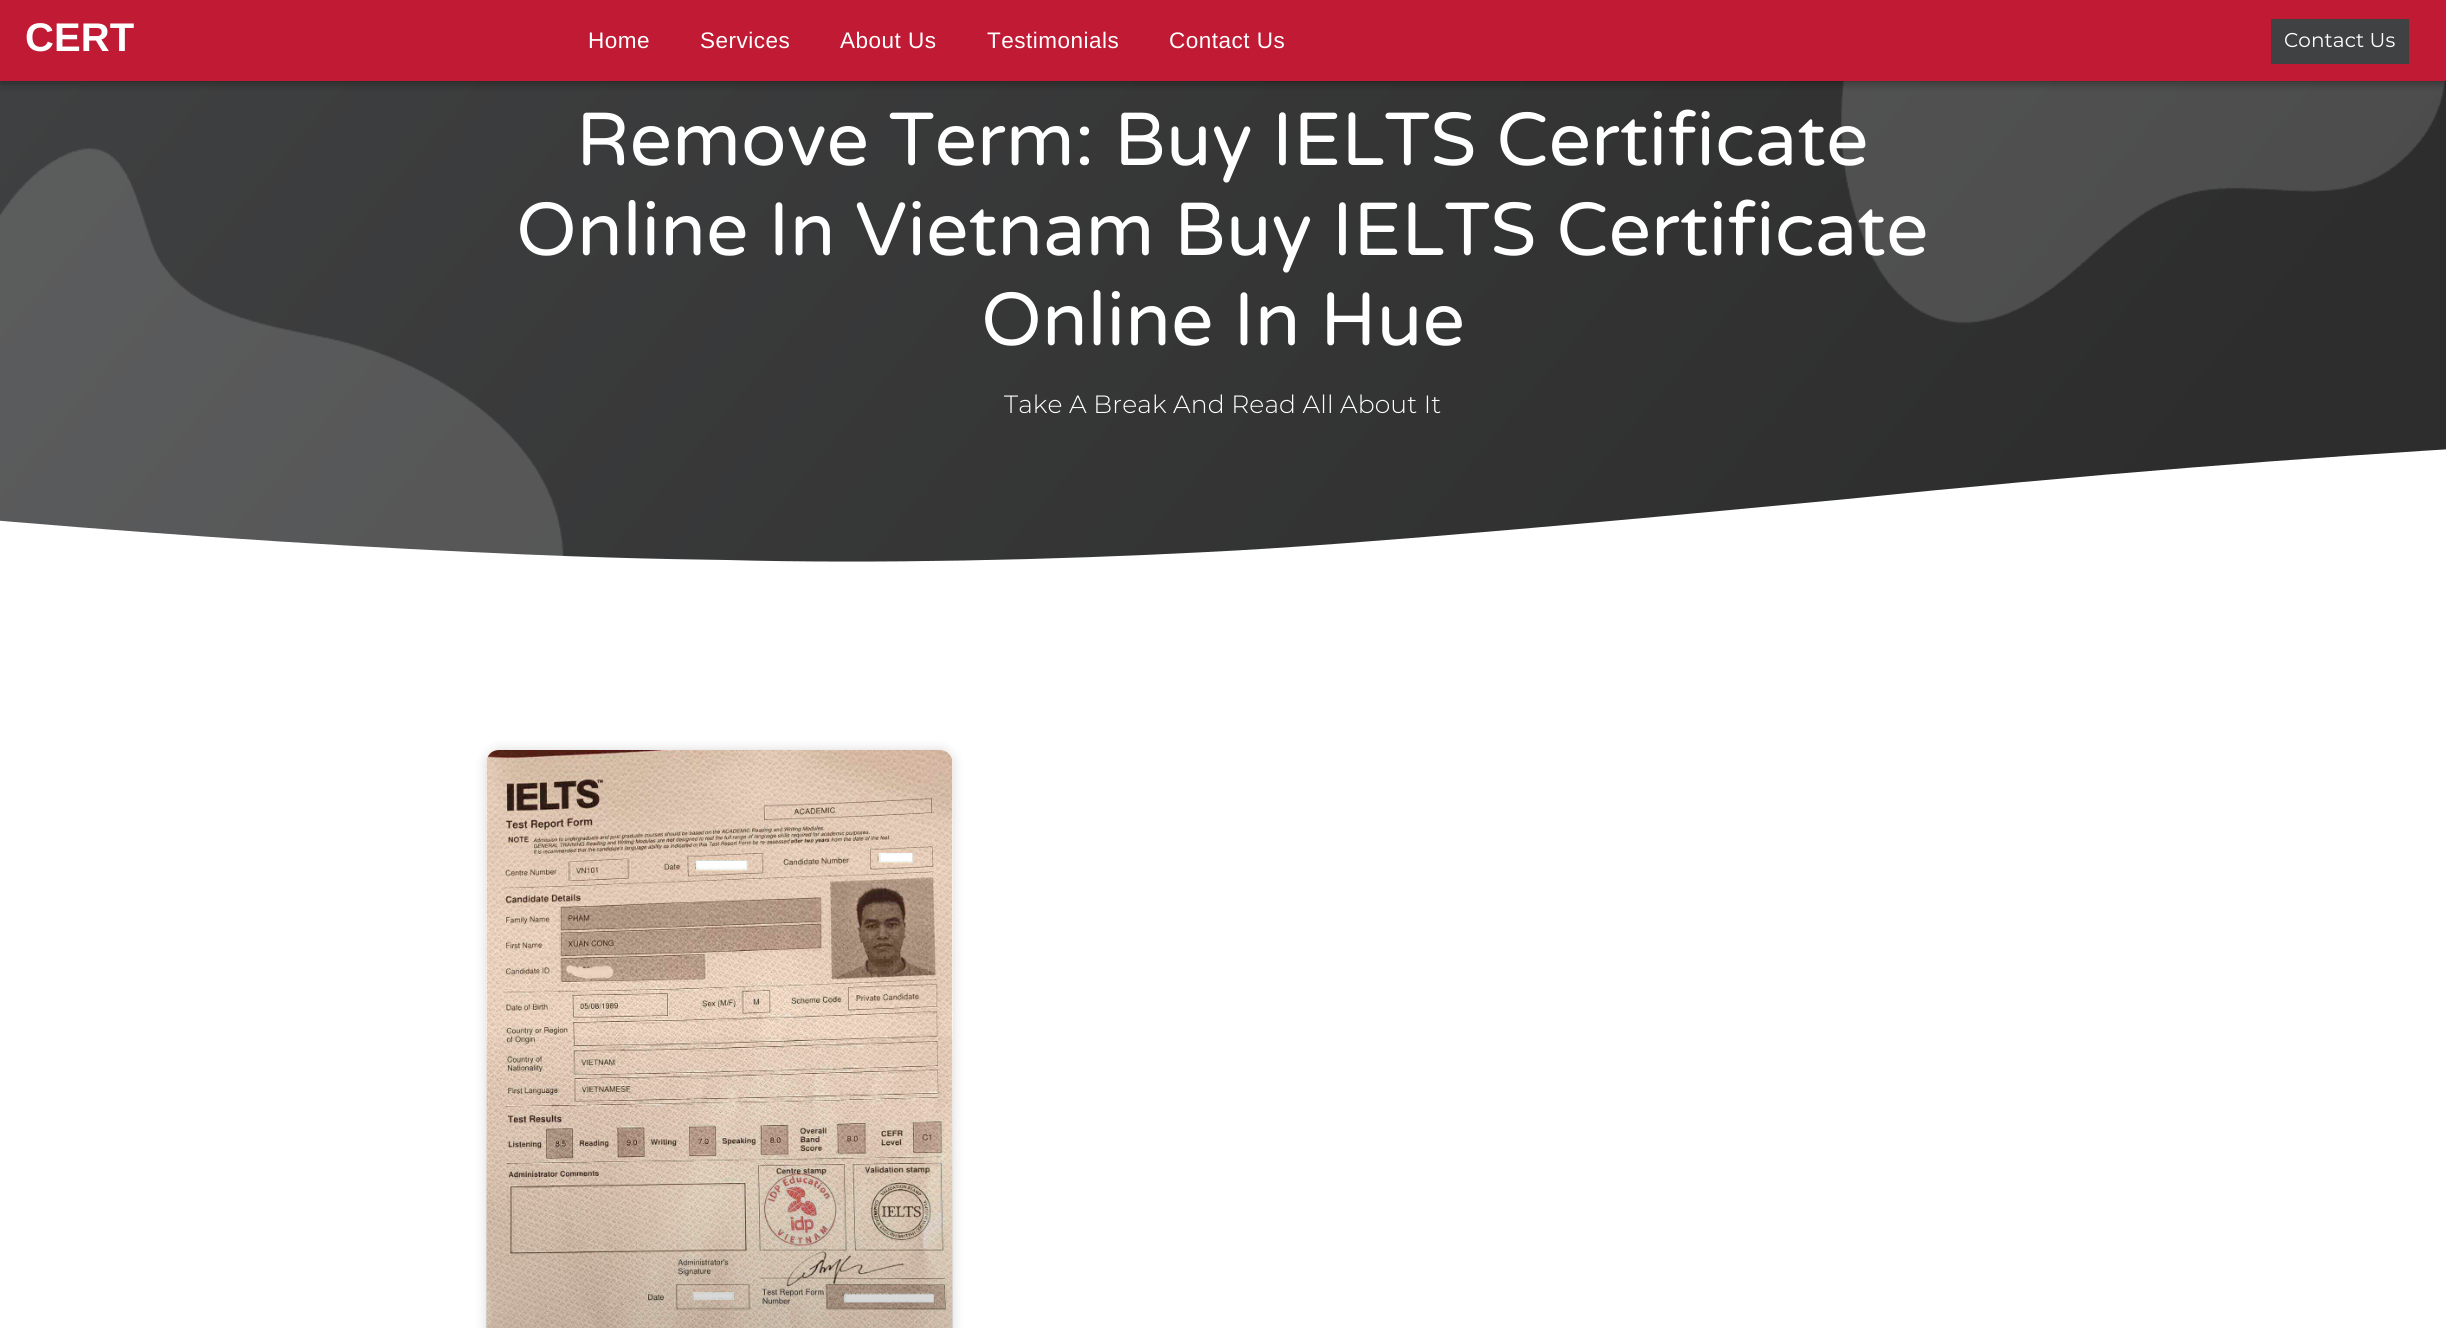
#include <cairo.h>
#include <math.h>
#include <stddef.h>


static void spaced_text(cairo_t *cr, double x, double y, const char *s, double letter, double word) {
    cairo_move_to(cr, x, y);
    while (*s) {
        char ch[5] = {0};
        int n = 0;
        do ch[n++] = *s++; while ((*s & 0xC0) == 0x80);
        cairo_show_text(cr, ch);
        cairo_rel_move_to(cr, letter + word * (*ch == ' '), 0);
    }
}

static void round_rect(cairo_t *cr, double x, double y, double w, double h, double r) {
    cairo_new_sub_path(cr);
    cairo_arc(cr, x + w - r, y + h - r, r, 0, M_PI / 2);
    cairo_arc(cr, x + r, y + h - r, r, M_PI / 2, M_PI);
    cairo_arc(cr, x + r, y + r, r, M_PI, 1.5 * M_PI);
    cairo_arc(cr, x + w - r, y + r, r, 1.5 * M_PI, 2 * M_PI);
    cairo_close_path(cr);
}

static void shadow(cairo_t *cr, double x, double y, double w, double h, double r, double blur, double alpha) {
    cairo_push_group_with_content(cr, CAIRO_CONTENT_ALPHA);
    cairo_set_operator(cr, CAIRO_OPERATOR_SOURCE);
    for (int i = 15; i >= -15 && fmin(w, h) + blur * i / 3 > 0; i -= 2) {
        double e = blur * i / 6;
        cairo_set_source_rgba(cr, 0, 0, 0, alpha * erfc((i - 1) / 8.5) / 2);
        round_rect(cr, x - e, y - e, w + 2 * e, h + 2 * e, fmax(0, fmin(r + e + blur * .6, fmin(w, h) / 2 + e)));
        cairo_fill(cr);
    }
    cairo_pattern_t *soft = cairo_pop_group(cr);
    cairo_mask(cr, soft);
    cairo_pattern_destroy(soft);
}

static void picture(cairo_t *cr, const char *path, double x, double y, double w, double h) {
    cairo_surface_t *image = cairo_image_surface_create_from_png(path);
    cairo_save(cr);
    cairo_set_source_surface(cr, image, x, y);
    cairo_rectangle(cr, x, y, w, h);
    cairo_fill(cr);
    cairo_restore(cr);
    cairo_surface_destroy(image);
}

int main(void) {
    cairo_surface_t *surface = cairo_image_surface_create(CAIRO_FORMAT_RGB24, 2446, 1328);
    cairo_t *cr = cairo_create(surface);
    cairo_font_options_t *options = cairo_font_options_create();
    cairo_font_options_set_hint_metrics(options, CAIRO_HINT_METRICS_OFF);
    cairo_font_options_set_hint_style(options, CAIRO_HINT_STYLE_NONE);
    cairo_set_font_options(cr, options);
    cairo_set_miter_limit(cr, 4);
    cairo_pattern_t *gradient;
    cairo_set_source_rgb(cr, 1, 1, 1);
    cairo_paint(cr);
    cairo_set_source_rgb(cr, 0.753, 0.102, 0.204);
    cairo_rectangle(cr, 0, 0, 2446, 81);
    cairo_fill(cr);
    gradient = cairo_pattern_create_linear(351, -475, 2095, 988);
    cairo_pattern_add_color_stop_rgba(gradient, 0, 0.251, 0.255, 0.259, 1);
    cairo_pattern_add_color_stop_rgba(gradient, 0.89, 0.176, 0.176, 0.176, 1);
    cairo_set_source(cr, gradient);
    cairo_pattern_destroy(gradient);
    cairo_rectangle(cr, 0, 81, 2446, 481);
    cairo_fill(cr);
    picture(cr, "img1.png", 0, 81, 2445, 475);
    cairo_save(cr);
    cairo_rectangle(cr, 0, 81, 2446, 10);
    cairo_clip(cr);
    cairo_set_source_rgb(cr, 0, 0, 0);
    shadow(cr, 1, 0, 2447, 81, 0, 6, 0.5);
    cairo_restore(cr);
    cairo_select_font_face(cr, "Liberation Sans", CAIRO_FONT_SLANT_NORMAL, CAIRO_FONT_WEIGHT_BOLD);
    cairo_set_font_size(cr, 40);
    cairo_set_source_rgb(cr, 1, 1, 1);
    spaced_text(cr, 25, 51, "CERT", 0.1, 0);
    cairo_select_font_face(cr, "Liberation Sans", CAIRO_FONT_SLANT_NORMAL, CAIRO_FONT_WEIGHT_NORMAL);
    cairo_set_font_size(cr, 22.5);
    spaced_text(cr, 588, 48, "Home", 0.5, 0);
    spaced_text(cr, 700, 48, "Services", 0.5, 0);
    spaced_text(cr, 840, 48, "About Us", 0.5, 0);
    spaced_text(cr, 987, 48, "Testimonials", 0.5, 0);
    spaced_text(cr, 1169, 48, "Contact Us", 0.5, 0);
    cairo_set_source_rgb(cr, 0.251, 0.255, 0.259);
    cairo_rectangle(cr, 2271, 19, 138, 45);
    cairo_fill(cr);
    cairo_select_font_face(cr, "Montserrat", CAIRO_FONT_SLANT_NORMAL, CAIRO_FONT_WEIGHT_NORMAL);
    cairo_set_font_size(cr, 20);
    cairo_set_source_rgb(cr, 1, 1, 1);
    spaced_text(cr, 2284, 47, "Contact Us", 0.1, 0);
    cairo_select_font_face(cr, "Varela Round", CAIRO_FONT_SLANT_NORMAL, CAIRO_FONT_WEIGHT_NORMAL);
    cairo_set_font_size(cr, 75);
    spaced_text(cr, 576, 165, "Remove Term: Buy IELTS Certificate", 0.1, 0);
    spaced_text(cr, 516, 255, "Online In Vietnam Buy IELTS Certificate", 0.1, 0);
    spaced_text(cr, 981, 345, "Online In Hue", 0.1, 0);
    cairo_select_font_face(cr, "Montserrat Light", CAIRO_FONT_SLANT_NORMAL, CAIRO_FONT_WEIGHT_NORMAL);
    cairo_set_font_size(cr, 25);
    spaced_text(cr, 1004, 413, "Take A Break And Read All About It", 0.1, 0);
    cairo_new_path(cr);
    cairo_move_to(cr, 727, 560);
    cairo_curve_to(cr, 871, 564, 1055, 560, 1207, 552);
    cairo_curve_to(cr, 1357, 545, 1658, 517, 1847, 499);
    cairo_curve_to(cr, 2329, 450, 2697, 432, 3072, 424);
    cairo_curve_to(cr, 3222, 421, 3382, 419, 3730, 428);
    cairo_curve_to(cr, 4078, 437, 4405, 466, 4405, 466);
    cairo_line_to(cr, 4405, 570);
    cairo_line_to(cr, -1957, 570);
    cairo_line_to(cr, -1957, 525);
    cairo_curve_to(cr, -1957, 525, -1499, 476, -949, 479);
    cairo_curve_to(cr, -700, 480, -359, 489, -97, 512);
    cairo_curve_to(cr, 38, 525, 235, 540, 410, 549);
    cairo_curve_to(cr, 583, 558, 661, 559, 727, 560);
    cairo_close_path(cr);
    cairo_fill(cr);
    cairo_set_source_rgb(cr, 0, 0, 0);
    shadow(cr, 486, 750, 467, 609, 13, 6, 0.15);
    cairo_set_source_rgb(cr, 1, 1, 1);
    round_rect(cr, 486, 750, 467, 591, 13);
    cairo_fill(cr);
    picture(cr, "img2.png", 486, 750, 467, 578);
    gradient = cairo_pattern_create_linear(719, 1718, 719, 750);
    cairo_pattern_add_color_stop_rgba(gradient, 0, 0, 0, 0, 0.35);
    cairo_pattern_add_color_stop_rgba(gradient, 0.75, 0, 0, 0, 0);
    cairo_set_source(cr, gradient);
    cairo_pattern_destroy(gradient);
    cairo_rectangle(cr, 486, 1037, 467, 291);
    cairo_fill(cr);
    cairo_surface_write_to_png(surface, "page.png");
    cairo_font_options_destroy(options);
    cairo_destroy(cr);
    cairo_surface_destroy(surface);
    return 0;
}
